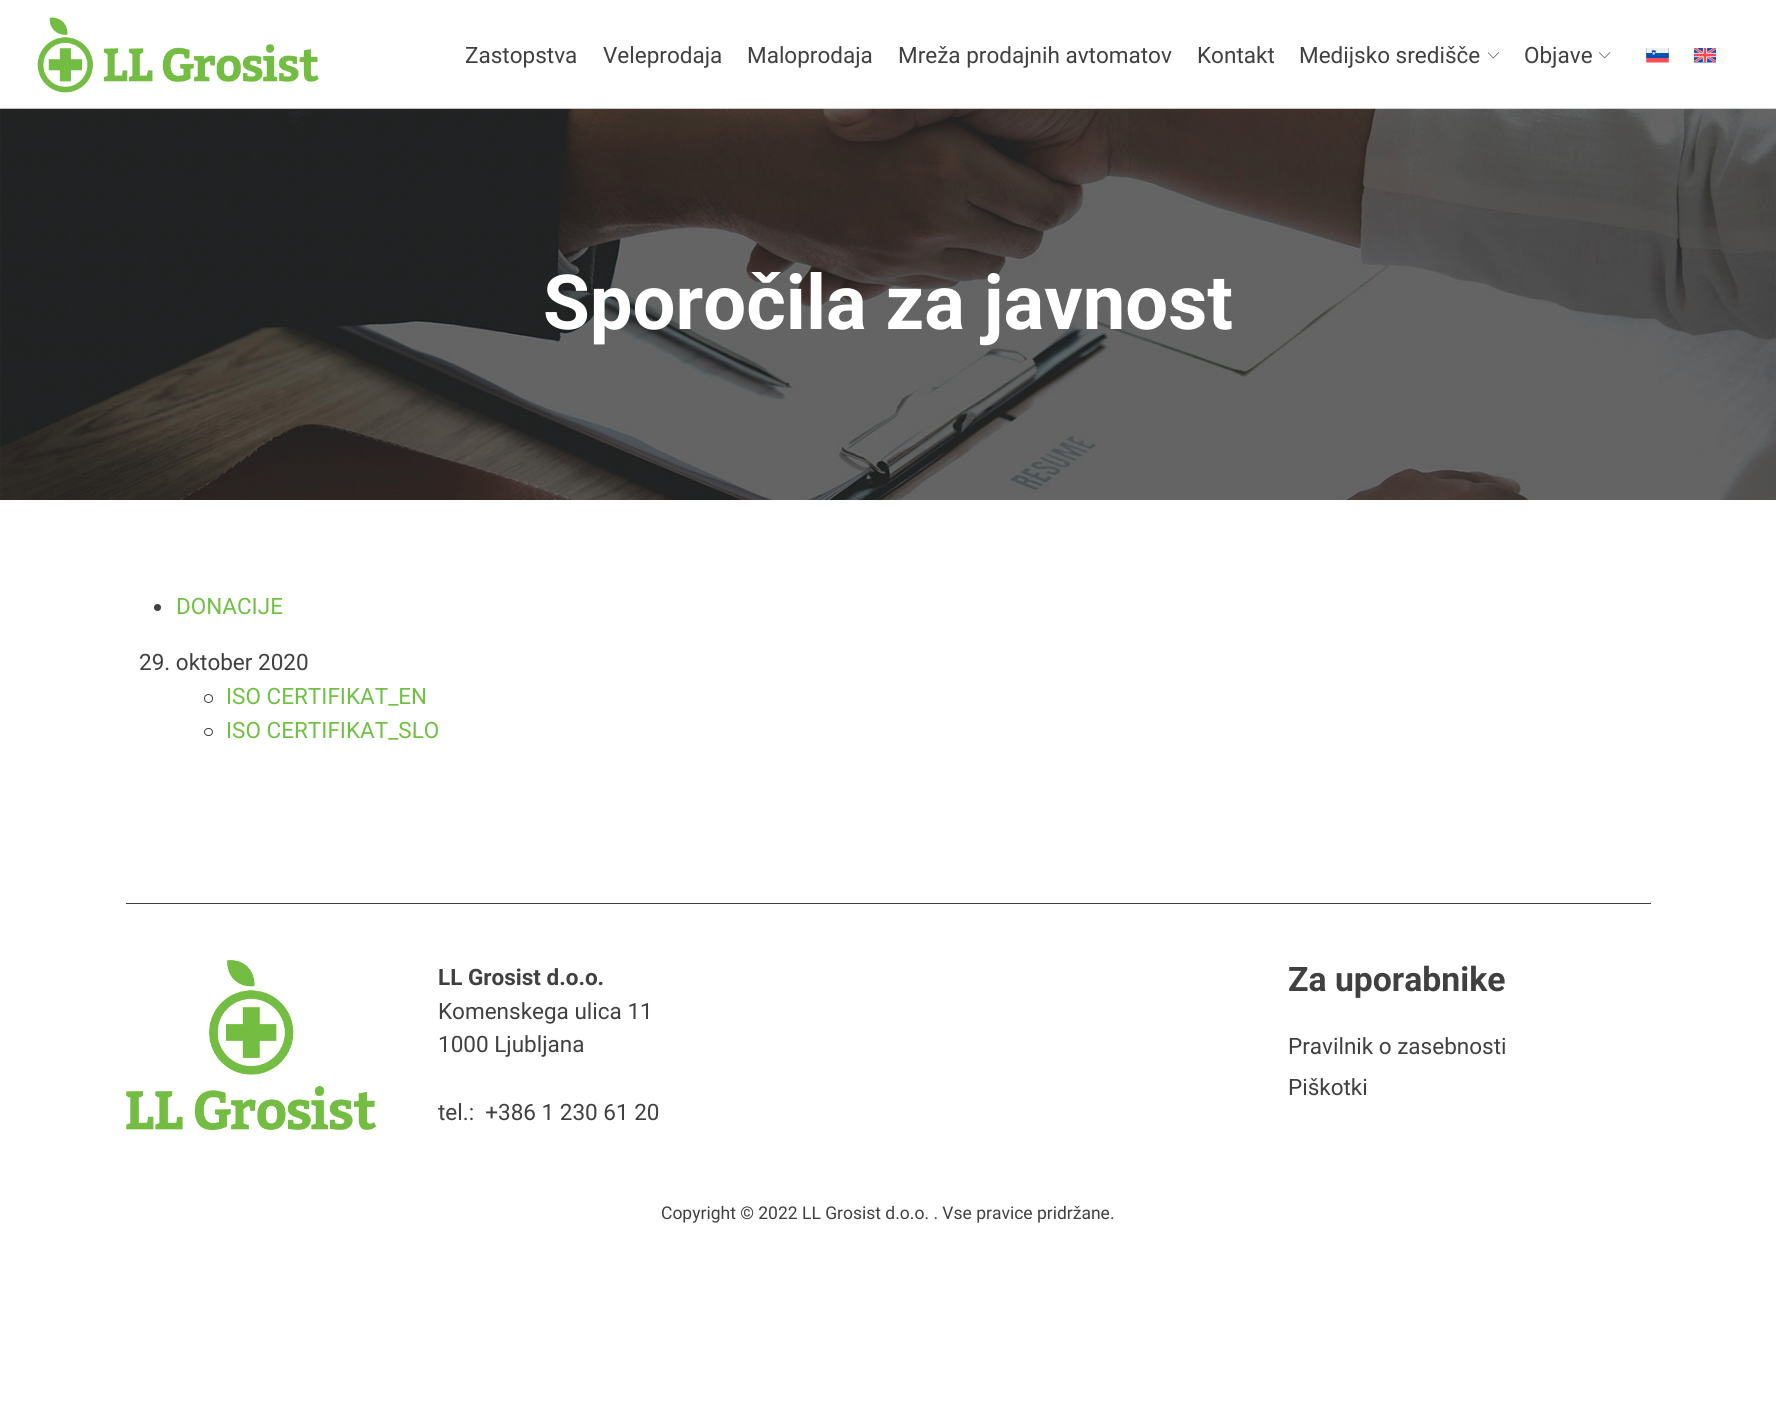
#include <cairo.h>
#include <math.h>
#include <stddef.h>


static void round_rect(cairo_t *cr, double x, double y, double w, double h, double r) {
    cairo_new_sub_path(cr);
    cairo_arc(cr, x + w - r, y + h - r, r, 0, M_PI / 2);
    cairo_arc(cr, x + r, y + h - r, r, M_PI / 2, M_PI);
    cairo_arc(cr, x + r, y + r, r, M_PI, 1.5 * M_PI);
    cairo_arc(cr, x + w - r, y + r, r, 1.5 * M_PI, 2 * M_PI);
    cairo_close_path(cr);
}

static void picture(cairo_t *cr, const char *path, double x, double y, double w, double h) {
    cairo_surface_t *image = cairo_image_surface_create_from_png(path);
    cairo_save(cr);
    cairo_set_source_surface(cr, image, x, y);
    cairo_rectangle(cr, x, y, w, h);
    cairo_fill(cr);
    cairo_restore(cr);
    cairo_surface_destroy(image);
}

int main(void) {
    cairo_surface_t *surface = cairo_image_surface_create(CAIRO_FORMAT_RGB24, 1776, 1401);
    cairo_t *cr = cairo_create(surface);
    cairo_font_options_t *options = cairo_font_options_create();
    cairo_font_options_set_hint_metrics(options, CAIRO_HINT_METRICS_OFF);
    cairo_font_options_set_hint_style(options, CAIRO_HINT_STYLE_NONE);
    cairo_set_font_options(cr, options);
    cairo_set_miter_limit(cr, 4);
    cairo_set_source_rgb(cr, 1, 1, 1);
    cairo_paint(cr);
    picture(cr, "img1.png", 37, 17, 282, 76);
    cairo_select_font_face(cr, "Roboto", CAIRO_FONT_SLANT_NORMAL, CAIRO_FONT_WEIGHT_NORMAL);
    cairo_set_font_size(cr, 22.5);
    cairo_set_source_rgb(cr, 0.251, 0.251, 0.251);
    cairo_move_to(cr, 465, 63);
    cairo_show_text(cr, "Zastopstva");
    cairo_move_to(cr, 603, 63);
    cairo_show_text(cr, "Veleprodaja");
    cairo_move_to(cr, 747, 63);
    cairo_show_text(cr, "Maloprodaja");
    cairo_move_to(cr, 898, 63);
    cairo_show_text(cr, "Mreža prodajnih avtomatov");
    cairo_move_to(cr, 1197, 63);
    cairo_show_text(cr, "Kontakt");
    cairo_move_to(cr, 1299, 63);
    cairo_show_text(cr, "Medijsko središče");
    picture(cr, "img2.png", 1488, 52, 11, 7);
    cairo_move_to(cr, 1524, 63);
    cairo_show_text(cr, "Objave");
    picture(cr, "img3.png", 1599, 52, 12, 7);
    picture(cr, "img4.png", 1646, 48, 23, 15);
    picture(cr, "img5.png", 1694, 48, 22, 15);
    picture(cr, "img6.png", 0, 108, 1776, 392);
    cairo_select_font_face(cr, "Roboto", CAIRO_FONT_SLANT_NORMAL, CAIRO_FONT_WEIGHT_BOLD);
    cairo_set_font_size(cr, 76);
    cairo_set_source_rgb(cr, 1, 1, 1);
    cairo_move_to(cr, 543, 329);
    cairo_show_text(cr, "Sporočila za javnost");
    cairo_set_source_rgb(cr, 0.251, 0.251, 0.251);
    cairo_new_path(cr);
    cairo_arc(cr, 157.5, 607.5, 3.5, 0, 2 * M_PI);
    cairo_fill(cr);
    cairo_select_font_face(cr, "Roboto", CAIRO_FONT_SLANT_NORMAL, CAIRO_FONT_WEIGHT_NORMAL);
    cairo_set_font_size(cr, 22.5);
    cairo_set_source_rgb(cr, 0.443, 0.749, 0.267);
    cairo_move_to(cr, 176, 614);
    cairo_show_text(cr, "DONACIJE");
    cairo_set_source_rgb(cr, 0.251, 0.251, 0.251);
    cairo_move_to(cr, 139, 670);
    cairo_show_text(cr, "29. oktober 2020");
    cairo_new_path(cr);
    cairo_arc(cr, 208.5, 698.5, 4, 0, 2 * M_PI);
    cairo_set_line_width(cr, 1);
    cairo_stroke(cr);
    cairo_set_source_rgb(cr, 0.443, 0.749, 0.267);
    cairo_move_to(cr, 226, 704);
    cairo_show_text(cr, "ISO CERTIFIKAT_EN");
    round_rect(cr, 204.5, 728.5, 8, 7, 3.5);
    cairo_set_source_rgb(cr, 0.251, 0.251, 0.251);
    cairo_stroke(cr);
    cairo_set_source_rgb(cr, 0.443, 0.749, 0.267);
    cairo_move_to(cr, 226, 738);
    cairo_show_text(cr, "ISO CERTIFIKAT_SLO");
    cairo_set_source_rgb(cr, 0.251, 0.251, 0.251);
    cairo_rectangle(cr, 126, 903, 1525, 1);
    cairo_fill(cr);
    picture(cr, "img7.png", 126, 960, 251, 170);
    cairo_select_font_face(cr, "Roboto", CAIRO_FONT_SLANT_NORMAL, CAIRO_FONT_WEIGHT_BOLD);
    cairo_move_to(cr, 438, 985);
    cairo_show_text(cr, "LL Grosist d.o.o.");
    cairo_select_font_face(cr, "Roboto", CAIRO_FONT_SLANT_NORMAL, CAIRO_FONT_WEIGHT_NORMAL);
    cairo_move_to(cr, 438, 1019);
    cairo_show_text(cr, "Komenskega ulica 11");
    cairo_move_to(cr, 438, 1052);
    cairo_show_text(cr, "1000 Ljubljana");
    cairo_move_to(cr, 438, 1120);
    cairo_show_text(cr, "tel.:  +386 1 230 61 20");
    cairo_select_font_face(cr, "Roboto", CAIRO_FONT_SLANT_NORMAL, CAIRO_FONT_WEIGHT_BOLD);
    cairo_set_font_size(cr, 33.75);
    cairo_move_to(cr, 1288, 991);
    cairo_show_text(cr, "Za uporabnike");
    cairo_select_font_face(cr, "Roboto", CAIRO_FONT_SLANT_NORMAL, CAIRO_FONT_WEIGHT_NORMAL);
    cairo_set_font_size(cr, 22.5);
    cairo_move_to(cr, 1288, 1054);
    cairo_show_text(cr, "Pravilnik o zasebnosti");
    cairo_move_to(cr, 1288, 1095);
    cairo_show_text(cr, "Piškotki");
    cairo_set_font_size(cr, 17.5);
    cairo_move_to(cr, 661, 1219);
    cairo_show_text(cr, "Copyright © 2022 LL Grosist d.o.o. . Vse pravice pridržane.");
    cairo_surface_write_to_png(surface, "page.png");
    cairo_font_options_destroy(options);
    cairo_destroy(cr);
    cairo_surface_destroy(surface);
    return 0;
}
